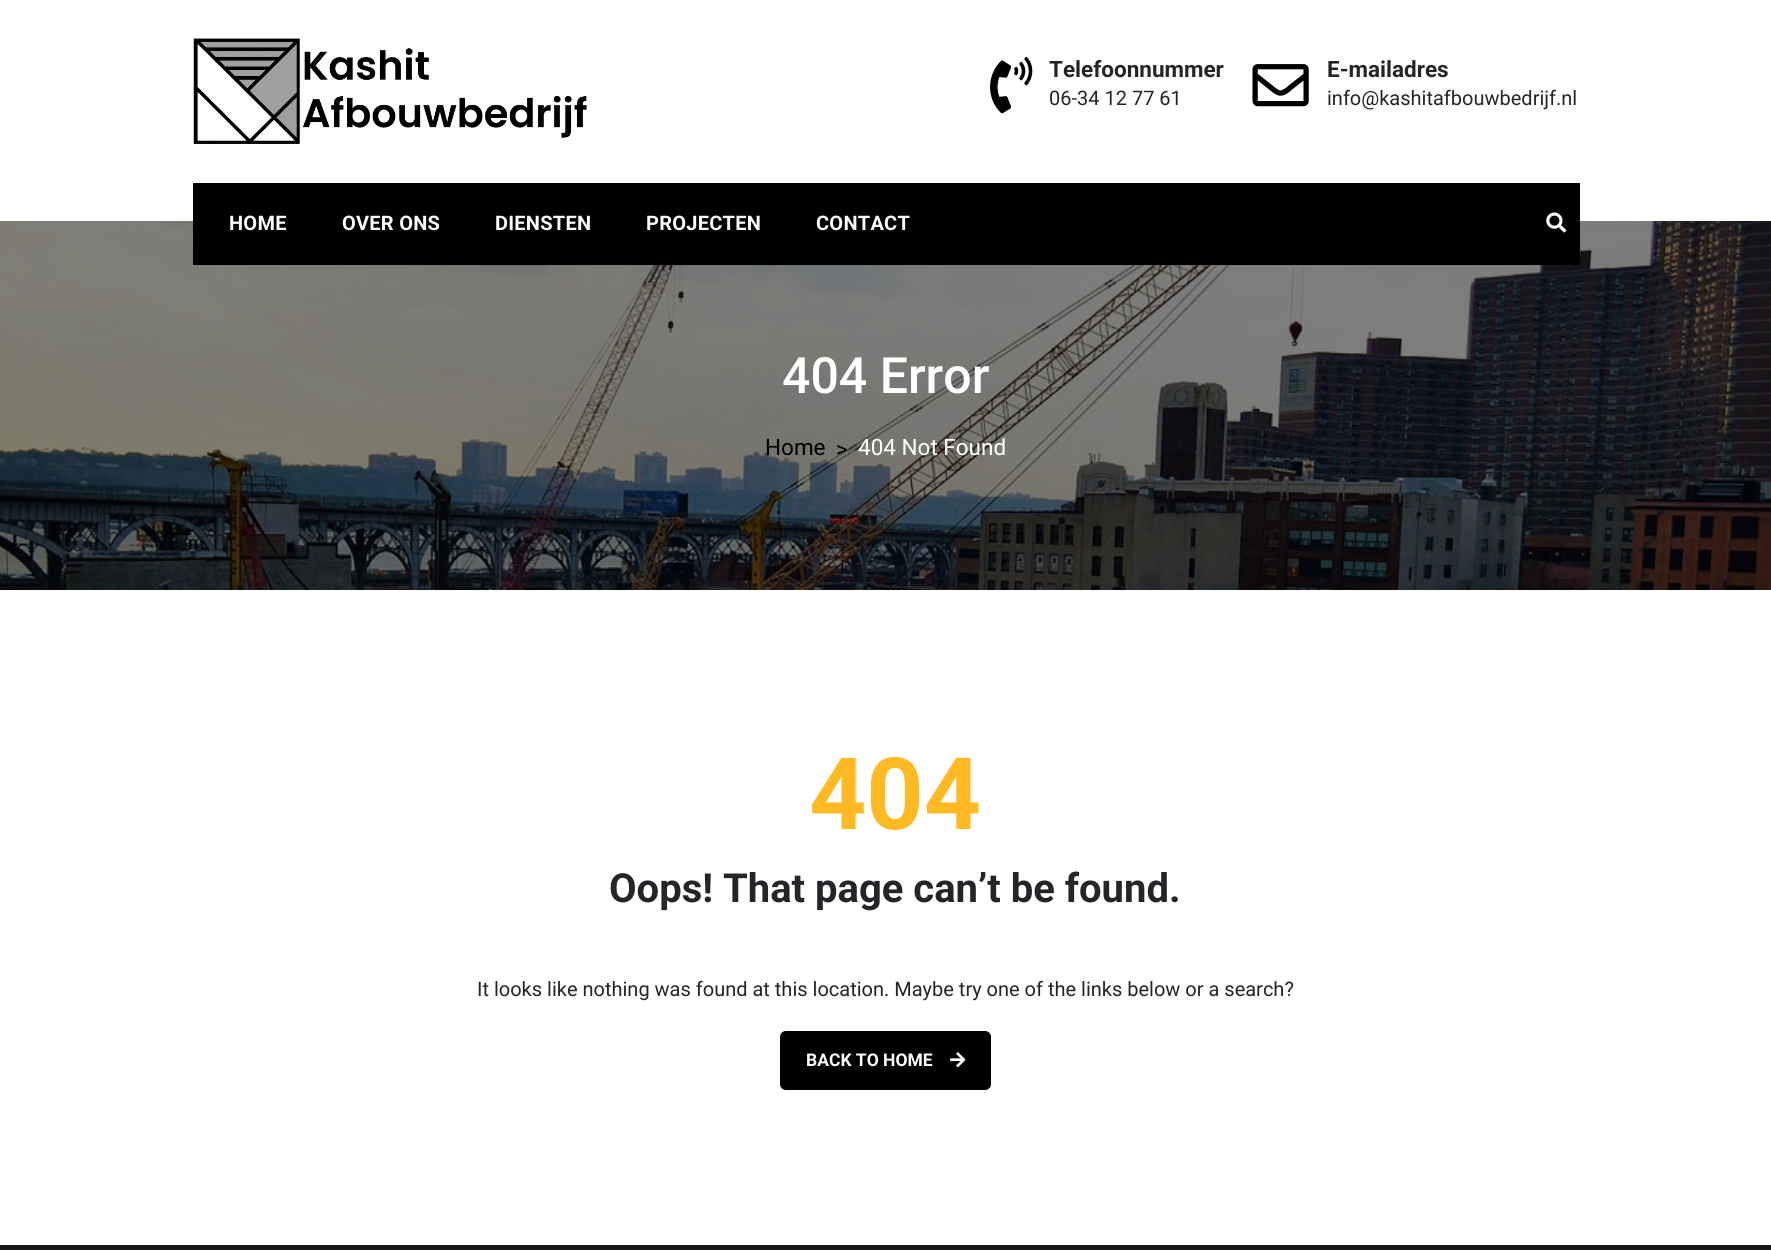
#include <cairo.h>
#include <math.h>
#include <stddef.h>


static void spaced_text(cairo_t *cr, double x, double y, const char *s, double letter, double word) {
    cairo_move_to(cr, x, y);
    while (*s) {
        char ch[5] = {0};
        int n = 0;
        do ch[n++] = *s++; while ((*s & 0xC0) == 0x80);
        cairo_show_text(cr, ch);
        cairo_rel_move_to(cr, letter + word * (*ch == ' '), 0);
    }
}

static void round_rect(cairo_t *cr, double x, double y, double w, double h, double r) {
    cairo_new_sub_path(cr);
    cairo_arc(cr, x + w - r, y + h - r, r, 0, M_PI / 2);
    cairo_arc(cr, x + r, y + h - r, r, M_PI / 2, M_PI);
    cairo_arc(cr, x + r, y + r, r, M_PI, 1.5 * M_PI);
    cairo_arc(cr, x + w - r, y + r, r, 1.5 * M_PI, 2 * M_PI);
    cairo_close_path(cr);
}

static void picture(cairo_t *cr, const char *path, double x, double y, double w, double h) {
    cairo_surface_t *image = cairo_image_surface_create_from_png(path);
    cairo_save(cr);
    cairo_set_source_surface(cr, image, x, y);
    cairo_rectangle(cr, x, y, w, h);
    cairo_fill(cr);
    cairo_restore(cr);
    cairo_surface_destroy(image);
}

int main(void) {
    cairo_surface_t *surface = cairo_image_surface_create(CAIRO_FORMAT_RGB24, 1771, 1250);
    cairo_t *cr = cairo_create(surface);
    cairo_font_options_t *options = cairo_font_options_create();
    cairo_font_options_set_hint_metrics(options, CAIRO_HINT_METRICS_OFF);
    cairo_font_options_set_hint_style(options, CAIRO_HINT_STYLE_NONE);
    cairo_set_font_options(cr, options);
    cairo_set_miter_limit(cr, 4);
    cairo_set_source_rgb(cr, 1, 1, 1);
    cairo_paint(cr);
    picture(cr, "img1.png", 193, 38, 394, 106);
    picture(cr, "img2.png", 990, 56, 43, 58);
    cairo_select_font_face(cr, "Roboto", CAIRO_FONT_SLANT_NORMAL, CAIRO_FONT_WEIGHT_BOLD);
    cairo_set_font_size(cr, 22.5);
    cairo_set_source_rgb(cr, 0.137, 0.145, 0.161);
    cairo_move_to(cr, 1049, 77);
    cairo_show_text(cr, "Telefoonnummer");
    cairo_select_font_face(cr, "Roboto", CAIRO_FONT_SLANT_NORMAL, CAIRO_FONT_WEIGHT_NORMAL);
    cairo_set_font_size(cr, 20);
    cairo_move_to(cr, 1049, 105);
    cairo_show_text(cr, "06-34 12 77 61");
    picture(cr, "img3.png", 1252, 64, 57, 43);
    cairo_select_font_face(cr, "Roboto", CAIRO_FONT_SLANT_NORMAL, CAIRO_FONT_WEIGHT_BOLD);
    cairo_set_font_size(cr, 22.5);
    cairo_move_to(cr, 1327, 77);
    cairo_show_text(cr, "E-mailadres");
    cairo_select_font_face(cr, "Roboto", CAIRO_FONT_SLANT_NORMAL, CAIRO_FONT_WEIGHT_NORMAL);
    cairo_set_font_size(cr, 20);
    cairo_move_to(cr, 1327, 105);
    cairo_show_text(cr, "info@kashitafbouwbedrijf.nl");
    picture(cr, "img5.png", 0, 221, 1771, 369);
    cairo_set_source_rgb(cr, 0, 0, 0);
    cairo_rectangle(cr, 193, 183, 1387, 82);
    cairo_fill(cr);
    cairo_select_font_face(cr, "Roboto", CAIRO_FONT_SLANT_NORMAL, CAIRO_FONT_WEIGHT_BOLD);
    cairo_set_source_rgb(cr, 1, 1, 1);
    spaced_text(cr, 229, 230, "HOME", 0.25, 0);
    spaced_text(cr, 342, 230, "OVER ONS", 0.25, 0);
    spaced_text(cr, 495, 230, "DIENSTEN", 0.25, 0);
    spaced_text(cr, 646, 230, "PROJECTEN", 0.25, 0);
    spaced_text(cr, 816, 230, "CONTACT", 0.25, 0);
    picture(cr, "img4.png", 1546, 212, 21, 21);
    cairo_select_font_face(cr, "Roboto Medium", CAIRO_FONT_SLANT_NORMAL, CAIRO_FONT_WEIGHT_NORMAL);
    cairo_set_font_size(cr, 50);
    cairo_move_to(cr, 782, 393);
    cairo_show_text(cr, "404 Error");
    cairo_select_font_face(cr, "Roboto", CAIRO_FONT_SLANT_NORMAL, CAIRO_FONT_WEIGHT_NORMAL);
    cairo_set_font_size(cr, 22.5);
    cairo_set_source_rgb(cr, 0, 0, 0);
    cairo_move_to(cr, 765, 455);
    cairo_show_text(cr, "Home");
    cairo_move_to(cr, 836, 457);
    cairo_show_text(cr, ">");
    cairo_set_source_rgb(cr, 1, 1, 1);
    cairo_move_to(cr, 858, 455);
    cairo_show_text(cr, "404 Not Found");
    cairo_select_font_face(cr, "Roboto", CAIRO_FONT_SLANT_NORMAL, CAIRO_FONT_WEIGHT_BOLD);
    cairo_set_font_size(cr, 100);
    cairo_set_source_rgb(cr, 1, 0.725, 0.137);
    cairo_move_to(cr, 809, 829);
    cairo_show_text(cr, "404");
    cairo_set_font_size(cr, 40);
    cairo_set_source_rgb(cr, 0.137, 0.145, 0.161);
    cairo_move_to(cr, 609, 902);
    cairo_show_text(cr, "Oops! That page can’t be found.");
    cairo_select_font_face(cr, "Roboto", CAIRO_FONT_SLANT_NORMAL, CAIRO_FONT_WEIGHT_NORMAL);
    cairo_set_font_size(cr, 20);
    cairo_move_to(cr, 477, 996);
    cairo_show_text(cr, "It looks like nothing was found at this location. Maybe try one of the links below or a search?");
    cairo_set_source_rgb(cr, 0, 0, 0);
    round_rect(cr, 780.5, 1031.5, 210, 58, 5.5);
    cairo_fill_preserve(cr);
    cairo_set_line_width(cr, 1);
    cairo_stroke(cr);
    cairo_select_font_face(cr, "Roboto", CAIRO_FONT_SLANT_NORMAL, CAIRO_FONT_WEIGHT_BOLD);
    cairo_set_font_size(cr, 17.5);
    cairo_set_source_rgb(cr, 1, 1, 1);
    cairo_move_to(cr, 806, 1066);
    cairo_show_text(cr, "BACK TO HOME");
    picture(cr, "img6.png", 950, 1052, 16, 16);
    cairo_set_source_rgb(cr, 0.098, 0.094, 0.094);
    cairo_rectangle(cr, 0, 1245, 1771, 5);
    cairo_fill(cr);
    cairo_surface_write_to_png(surface, "page.png");
    cairo_font_options_destroy(options);
    cairo_destroy(cr);
    cairo_surface_destroy(surface);
    return 0;
}
